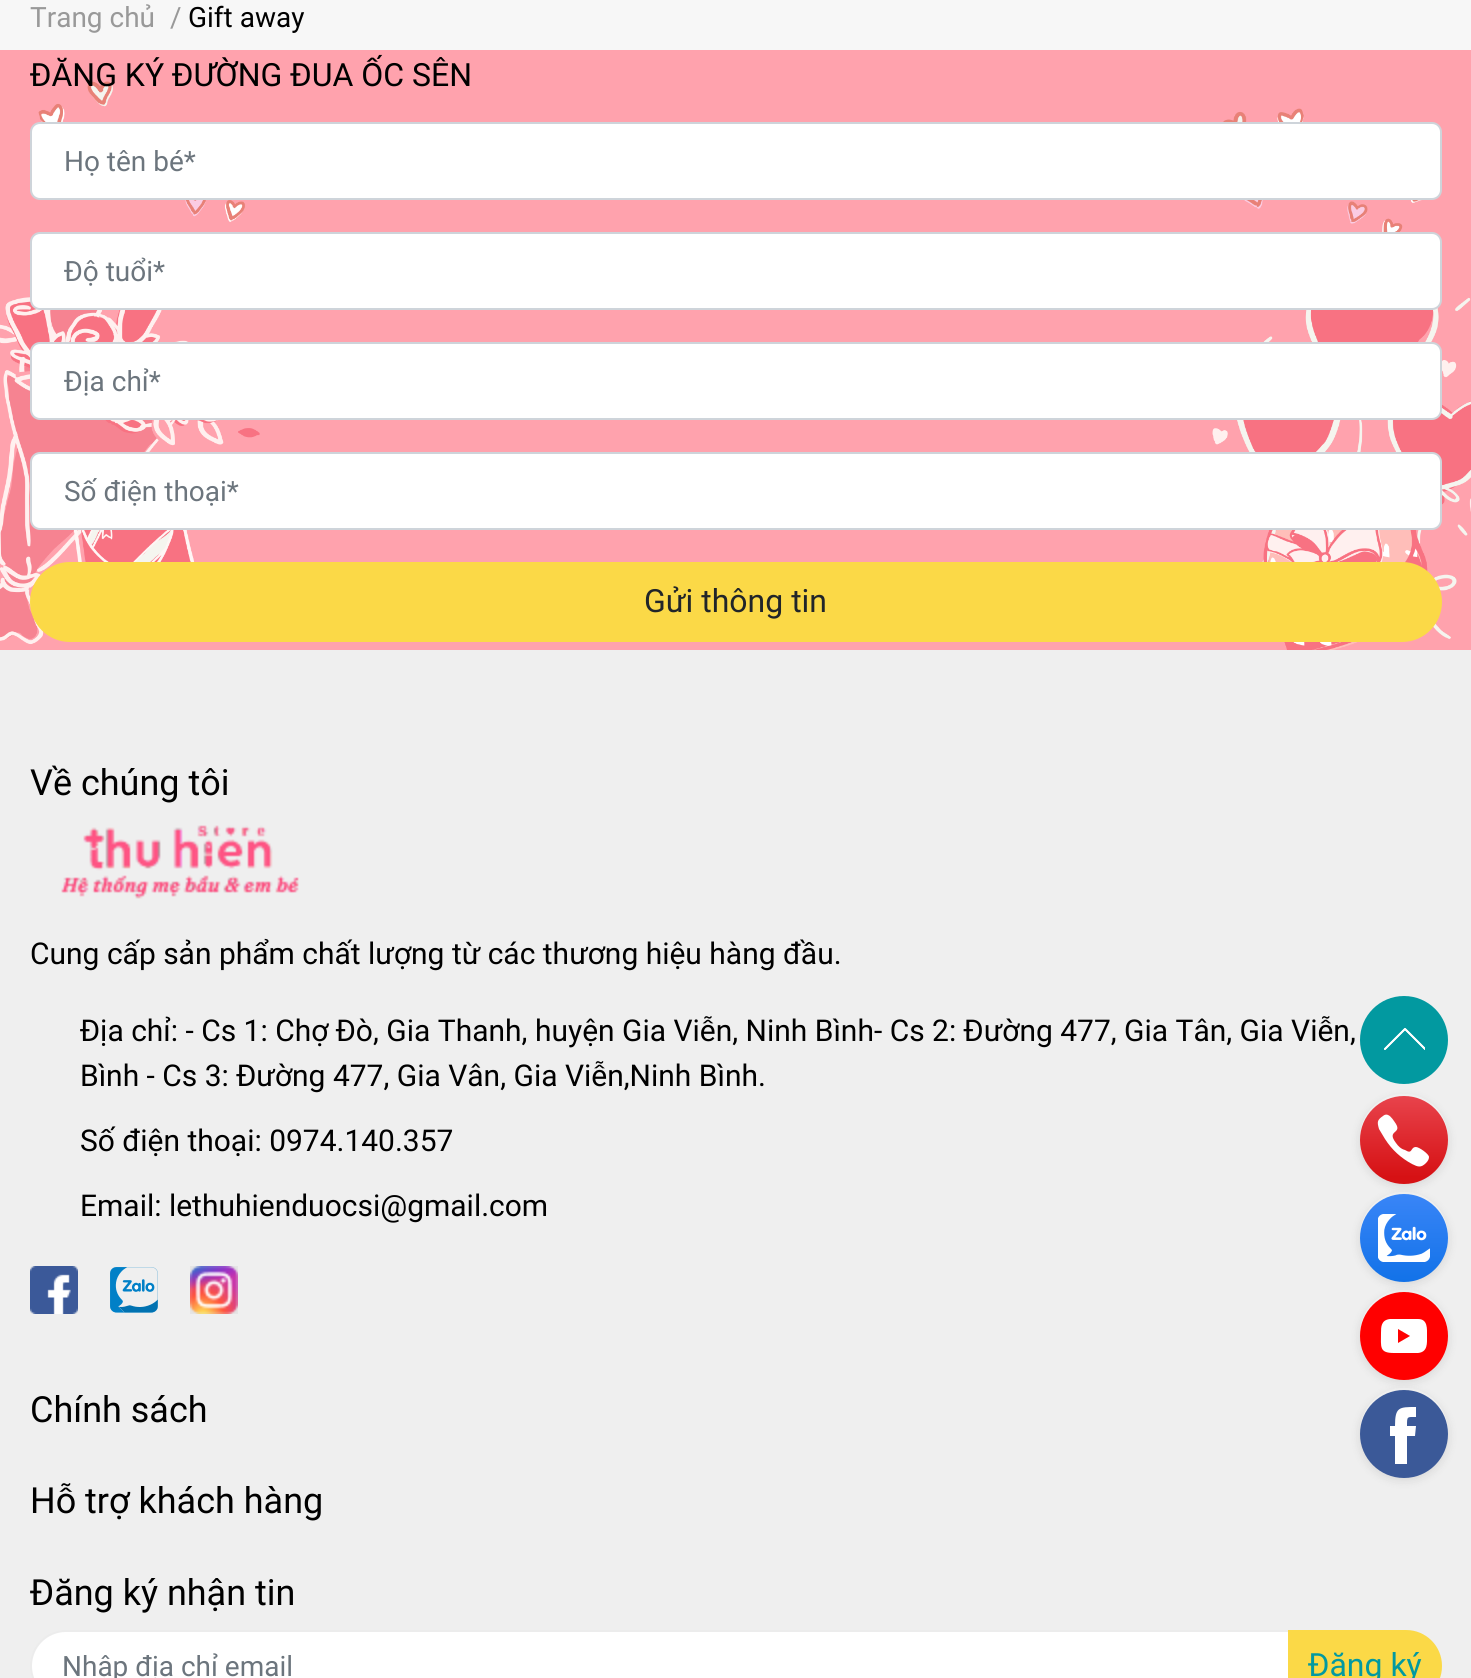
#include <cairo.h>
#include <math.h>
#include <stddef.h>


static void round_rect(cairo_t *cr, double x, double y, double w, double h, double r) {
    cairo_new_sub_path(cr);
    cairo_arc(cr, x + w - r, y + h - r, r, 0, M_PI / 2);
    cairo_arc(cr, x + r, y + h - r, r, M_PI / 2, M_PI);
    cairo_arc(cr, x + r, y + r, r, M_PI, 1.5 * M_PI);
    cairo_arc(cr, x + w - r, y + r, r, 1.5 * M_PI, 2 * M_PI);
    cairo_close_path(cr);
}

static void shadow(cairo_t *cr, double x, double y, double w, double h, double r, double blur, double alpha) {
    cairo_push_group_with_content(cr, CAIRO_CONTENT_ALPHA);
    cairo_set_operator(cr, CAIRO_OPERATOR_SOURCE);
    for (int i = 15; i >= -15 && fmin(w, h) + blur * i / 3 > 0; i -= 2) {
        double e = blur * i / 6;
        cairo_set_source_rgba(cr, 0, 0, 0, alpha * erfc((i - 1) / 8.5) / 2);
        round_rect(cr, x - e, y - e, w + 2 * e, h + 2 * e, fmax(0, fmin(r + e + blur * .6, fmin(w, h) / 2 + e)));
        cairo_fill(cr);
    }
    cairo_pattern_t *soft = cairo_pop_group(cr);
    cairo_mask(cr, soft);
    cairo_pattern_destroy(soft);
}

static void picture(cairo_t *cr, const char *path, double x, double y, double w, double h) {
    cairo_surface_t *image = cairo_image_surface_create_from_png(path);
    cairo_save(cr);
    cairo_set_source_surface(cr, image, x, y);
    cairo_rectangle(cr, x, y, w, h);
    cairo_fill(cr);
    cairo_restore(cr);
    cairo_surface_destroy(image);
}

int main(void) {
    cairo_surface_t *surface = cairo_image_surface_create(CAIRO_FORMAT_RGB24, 1471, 1678);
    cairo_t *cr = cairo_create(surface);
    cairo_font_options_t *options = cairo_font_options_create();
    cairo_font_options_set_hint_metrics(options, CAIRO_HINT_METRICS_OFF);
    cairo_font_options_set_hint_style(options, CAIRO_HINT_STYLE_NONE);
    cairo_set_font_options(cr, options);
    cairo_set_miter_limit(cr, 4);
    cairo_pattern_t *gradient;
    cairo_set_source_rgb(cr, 0.965, 0.965, 0.965);
    cairo_paint(cr);
    cairo_select_font_face(cr, "Roboto", CAIRO_FONT_SLANT_NORMAL, CAIRO_FONT_WEIGHT_NORMAL);
    cairo_set_font_size(cr, 28);
    cairo_set_source_rgb(cr, 0.6, 0.6, 0.6);
    cairo_move_to(cr, 30, 27);
    cairo_show_text(cr, "Trang chủ");
    cairo_move_to(cr, 170, 27);
    cairo_show_text(cr, "/");
    cairo_set_source_rgb(cr, 0, 0, 0);
    cairo_move_to(cr, 188, 27);
    cairo_show_text(cr, "Gift away");
    picture(cr, "img1.png", 0, 50, 1471, 600);
    cairo_set_font_size(cr, 32);
    cairo_move_to(cr, 30, 86);
    cairo_show_text(cr, "ĐĂNG KÝ ĐƯỜNG ĐUA ỐC SÊN");
    cairo_set_source_rgb(cr, 1, 1, 1);
    round_rect(cr, 31, 123, 1410, 76, 9);
    cairo_fill_preserve(cr);
    cairo_set_source_rgb(cr, 0.808, 0.831, 0.855);
    cairo_stroke(cr);
    cairo_set_font_size(cr, 28);
    cairo_set_source_rgb(cr, 0.424, 0.459, 0.49);
    cairo_move_to(cr, 64, 171);
    cairo_show_text(cr, "Họ tên bé*");
    cairo_set_source_rgb(cr, 1, 1, 1);
    round_rect(cr, 31, 233, 1410, 76, 9);
    cairo_fill_preserve(cr);
    cairo_set_source_rgb(cr, 0.808, 0.831, 0.855);
    cairo_stroke(cr);
    cairo_set_source_rgb(cr, 0.424, 0.459, 0.49);
    cairo_move_to(cr, 64, 281);
    cairo_show_text(cr, "Độ tuổi*");
    cairo_set_source_rgb(cr, 1, 1, 1);
    round_rect(cr, 31, 343, 1410, 76, 9);
    cairo_fill_preserve(cr);
    cairo_set_source_rgb(cr, 0.808, 0.831, 0.855);
    cairo_stroke(cr);
    cairo_set_source_rgb(cr, 0.424, 0.459, 0.49);
    cairo_move_to(cr, 64, 391);
    cairo_show_text(cr, "Địa chỉ*");
    cairo_set_source_rgb(cr, 1, 1, 1);
    round_rect(cr, 31, 453, 1410, 76, 9);
    cairo_fill_preserve(cr);
    cairo_set_source_rgb(cr, 0.808, 0.831, 0.855);
    cairo_stroke(cr);
    cairo_set_source_rgb(cr, 0.424, 0.459, 0.49);
    cairo_move_to(cr, 64, 501);
    cairo_show_text(cr, "Số điện thoại*");
    cairo_set_source_rgb(cr, 0.984, 0.851, 0.278);
    round_rect(cr, 31, 563, 1410, 78, 39);
    cairo_fill_preserve(cr);
    cairo_stroke(cr);
    cairo_set_font_size(cr, 32);
    cairo_set_source_rgb(cr, 0.129, 0.145, 0.161);
    cairo_move_to(cr, 644, 612);
    cairo_show_text(cr, "Gửi thông tin");
    cairo_set_source_rgb(cr, 0.937, 0.937, 0.937);
    cairo_rectangle(cr, 0, 650, 1471, 1028);
    cairo_fill(cr);
    cairo_set_font_size(cr, 36);
    cairo_set_source_rgb(cr, 0, 0, 0);
    cairo_move_to(cr, 30, 795);
    cairo_show_text(cr, "Về chúng tôi");
    picture(cr, "img2.png", 61, 825, 238, 74);
    cairo_set_font_size(cr, 30);
    cairo_move_to(cr, 30, 964);
    cairo_show_text(cr, "Cung cấp sản phẩm chất lượng từ các thương hiệu hàng đầu.");
    cairo_move_to(cr, 80, 1041);
    cairo_show_text(cr, "Địa chỉ: - Cs 1: Chợ Đò, Gia Thanh, huyện Gia Viễn, Ninh Bình- Cs 2: Đường 477, Gia Tân, Gia Viễn,");
    cairo_move_to(cr, 80, 1086);
    cairo_show_text(cr, "Bình - Cs 3: Đường 477, Gia Vân, Gia Viễn,Ninh Bình.");
    cairo_move_to(cr, 80, 1151);
    cairo_show_text(cr, "Số điện thoại: 0974.140.357");
    cairo_move_to(cr, 80, 1216);
    cairo_show_text(cr, "Email: lethuhienduocsi@gmail.com");
    picture(cr, "img3.png", 30, 1266, 48, 48);
    picture(cr, "img4.png", 110, 1267, 48, 46);
    picture(cr, "img5.png", 190, 1266, 48, 48);
    cairo_set_font_size(cr, 36);
    cairo_move_to(cr, 30, 1422);
    cairo_show_text(cr, "Chính sách");
    cairo_move_to(cr, 30, 1513);
    cairo_show_text(cr, "Hỗ trợ khách hàng");
    cairo_move_to(cr, 30, 1605);
    cairo_show_text(cr, "Đăng ký nhận tin");
    cairo_set_source_rgb(cr, 1, 1, 1);
    round_rect(cr, 31, 1631, 1410, 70, 35);
    cairo_fill_preserve(cr);
    cairo_set_source_rgb(cr, 0.922, 0.922, 0.922);
    cairo_stroke(cr);
    cairo_set_font_size(cr, 28);
    cairo_set_source_rgb(cr, 0.424, 0.459, 0.49);
    cairo_move_to(cr, 62, 1676);
    cairo_show_text(cr, "Nhập địa chỉ email");
    cairo_set_source_rgb(cr, 0.984, 0.851, 0.278);
    cairo_new_path(cr);
    cairo_move_to(cr, 1288, 1630);
    cairo_line_to(cr, 1406, 1630);
    cairo_curve_to(cr, 1426, 1630, 1442, 1646, 1442, 1666);
    cairo_curve_to(cr, 1442, 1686, 1426, 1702, 1406, 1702);
    cairo_line_to(cr, 1288, 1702);
    cairo_close_path(cr);
    cairo_fill(cr);
    cairo_set_font_size(cr, 32);
    cairo_set_source_rgb(cr, 0.008, 0.6, 0.627);
    cairo_move_to(cr, 1308, 1676);
    cairo_show_text(cr, "Đăng ký");
    cairo_new_path(cr);
    cairo_arc(cr, 1404, 1040, 44, 0, 2 * M_PI);
    cairo_fill(cr);
    picture(cr, "img6.png", 1384, 1028, 41, 22);
    cairo_save(cr);
    cairo_set_fill_rule(cr, CAIRO_FILL_RULE_EVEN_ODD);
    cairo_new_path(cr);
    cairo_move_to(cr, 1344, 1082);
    cairo_line_to(cr, 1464, 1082);
    cairo_line_to(cr, 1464, 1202);
    cairo_line_to(cr, 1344, 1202);
    cairo_close_path(cr);
    cairo_move_to(cr, 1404, 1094);
    cairo_curve_to(cr, 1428.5, 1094, 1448, 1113.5, 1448, 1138);
    cairo_curve_to(cr, 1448, 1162.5, 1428.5, 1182, 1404, 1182);
    cairo_curve_to(cr, 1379.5, 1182, 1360, 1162.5, 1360, 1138);
    cairo_curve_to(cr, 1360, 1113.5, 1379.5, 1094, 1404, 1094);
    cairo_close_path(cr);
    cairo_clip(cr);
    cairo_set_source_rgb(cr, 0, 0, 0);
    shadow(cr, 1360, 1098, 88, 88, 44, 5, 0.11);
    cairo_restore(cr);
    gradient = cairo_pattern_create_linear(1404, 1096, 1404, 1177);
    cairo_pattern_add_color_stop_rgba(gradient, 0, 0.91, 0.263, 0.298, 1);
    cairo_pattern_add_color_stop_rgba(gradient, 1, 0.839, 0.067, 0.078, 1);
    cairo_set_source(cr, gradient);
    cairo_pattern_destroy(gradient);
    cairo_arc(cr, 1404, 1140, 44, 0, 2 * M_PI);
    cairo_fill(cr);
    cairo_set_source_rgb(cr, 1, 1, 1);
    cairo_set_fill_rule(cr, CAIRO_FILL_RULE_EVEN_ODD);
    cairo_new_path(cr);
    cairo_move_to(cr, 1388, 1115);
    cairo_curve_to(cr, 1391, 1116, 1394, 1121, 1396, 1124);
    cairo_curve_to(cr, 1402, 1134, 1386, 1130, 1396, 1143);
    cairo_curve_to(cr, 1398, 1146, 1401, 1149, 1405, 1150);
    cairo_curve_to(cr, 1413, 1155, 1410, 1147, 1416, 1147);
    cairo_curve_to(cr, 1419, 1147, 1429, 1154, 1429, 1157);
    cairo_curve_to(cr, 1429, 1159, 1428, 1161, 1426, 1163);
    cairo_curve_to(cr, 1421, 1168, 1418, 1167, 1412, 1164);
    cairo_curve_to(cr, 1401, 1158, 1392, 1150, 1385, 1139);
    cairo_line_to(cr, 1379, 1129);
    cairo_curve_to(cr, 1377, 1122, 1377, 1120, 1383, 1116);
    cairo_curve_to(cr, 1384, 1115, 1386, 1114, 1388, 1115);
    cairo_close_path(cr);
    cairo_fill(cr);
    cairo_save(cr);
    cairo_new_path(cr);
    cairo_move_to(cr, 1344, 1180);
    cairo_line_to(cr, 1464, 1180);
    cairo_line_to(cr, 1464, 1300);
    cairo_line_to(cr, 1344, 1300);
    cairo_close_path(cr);
    cairo_move_to(cr, 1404, 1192);
    cairo_curve_to(cr, 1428.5, 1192, 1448, 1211.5, 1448, 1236);
    cairo_curve_to(cr, 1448, 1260.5, 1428.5, 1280, 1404, 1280);
    cairo_curve_to(cr, 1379.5, 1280, 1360, 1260.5, 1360, 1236);
    cairo_curve_to(cr, 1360, 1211.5, 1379.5, 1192, 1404, 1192);
    cairo_close_path(cr);
    cairo_clip(cr);
    cairo_set_source_rgb(cr, 0, 0, 0);
    shadow(cr, 1360, 1196, 88, 88, 44, 5, 0.11);
    cairo_restore(cr);
    picture(cr, "img7.png", 1360, 1194, 88, 88);
    cairo_save(cr);
    cairo_new_path(cr);
    cairo_move_to(cr, 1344, 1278);
    cairo_line_to(cr, 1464, 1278);
    cairo_line_to(cr, 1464, 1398);
    cairo_line_to(cr, 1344, 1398);
    cairo_close_path(cr);
    cairo_move_to(cr, 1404, 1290);
    cairo_curve_to(cr, 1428.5, 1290, 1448, 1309.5, 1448, 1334);
    cairo_curve_to(cr, 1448, 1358.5, 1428.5, 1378, 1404, 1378);
    cairo_curve_to(cr, 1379.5, 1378, 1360, 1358.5, 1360, 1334);
    cairo_curve_to(cr, 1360, 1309.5, 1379.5, 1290, 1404, 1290);
    cairo_close_path(cr);
    cairo_clip(cr);
    cairo_set_source_rgb(cr, 0, 0, 0);
    shadow(cr, 1360, 1294, 88, 88, 44, 5, 0.11);
    cairo_restore(cr);
    cairo_set_source_rgb(cr, 1, 0, 0);
    cairo_arc(cr, 1404, 1336, 44, 0, 2 * M_PI);
    cairo_fill(cr);
    cairo_set_source_rgb(cr, 1, 1, 1);
    cairo_set_fill_rule(cr, CAIRO_FILL_RULE_WINDING);
    cairo_new_path(cr);
    cairo_move_to(cr, 1418, 1319);
    cairo_line_to(cr, 1390, 1319);
    cairo_curve_to(cr, 1381, 1320, 1381, 1327, 1381, 1333);
    cairo_curve_to(cr, 1381, 1347, 1379, 1353, 1394, 1353);
    cairo_line_to(cr, 1418, 1353);
    cairo_curve_to(cr, 1428, 1352, 1427, 1343, 1427, 1336);
    cairo_curve_to(cr, 1427, 1329, 1428, 1319, 1418, 1319);
    cairo_close_path(cr);
    cairo_move_to(cr, 1398, 1343);
    cairo_line_to(cr, 1398, 1329);
    cairo_line_to(cr, 1410, 1336);
    cairo_close_path(cr);
    cairo_fill(cr);
    cairo_save(cr);
    cairo_set_fill_rule(cr, CAIRO_FILL_RULE_EVEN_ODD);
    cairo_new_path(cr);
    cairo_move_to(cr, 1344, 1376);
    cairo_line_to(cr, 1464, 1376);
    cairo_line_to(cr, 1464, 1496);
    cairo_line_to(cr, 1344, 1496);
    cairo_close_path(cr);
    cairo_move_to(cr, 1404, 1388);
    cairo_curve_to(cr, 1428.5, 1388, 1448, 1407.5, 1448, 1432);
    cairo_curve_to(cr, 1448, 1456.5, 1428.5, 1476, 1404, 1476);
    cairo_curve_to(cr, 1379.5, 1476, 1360, 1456.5, 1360, 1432);
    cairo_curve_to(cr, 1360, 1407.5, 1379.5, 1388, 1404, 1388);
    cairo_close_path(cr);
    cairo_clip(cr);
    cairo_set_source_rgb(cr, 0, 0, 0);
    shadow(cr, 1360, 1392, 88, 88, 44, 5, 0.11);
    cairo_restore(cr);
    cairo_set_source_rgb(cr, 0.231, 0.349, 0.596);
    cairo_arc(cr, 1404, 1434, 44, 0, 2 * M_PI);
    cairo_fill(cr);
    cairo_set_source_rgb(cr, 1, 1, 1);
    cairo_new_path(cr);
    cairo_move_to(cr, 1415, 1436);
    cairo_line_to(cr, 1407, 1436);
    cairo_line_to(cr, 1407, 1464);
    cairo_line_to(cr, 1395, 1464);
    cairo_line_to(cr, 1395, 1436);
    cairo_line_to(cr, 1390, 1436);
    cairo_line_to(cr, 1390, 1426);
    cairo_line_to(cr, 1395, 1426);
    cairo_curve_to(cr, 1395, 1407, 1399, 1407, 1416, 1407);
    cairo_line_to(cr, 1416, 1417);
    cairo_curve_to(cr, 1407, 1417, 1407, 1416, 1407, 1426);
    cairo_line_to(cr, 1416, 1426);
    cairo_close_path(cr);
    cairo_fill(cr);
    cairo_surface_write_to_png(surface, "page.png");
    cairo_font_options_destroy(options);
    cairo_destroy(cr);
    cairo_surface_destroy(surface);
    return 0;
}
